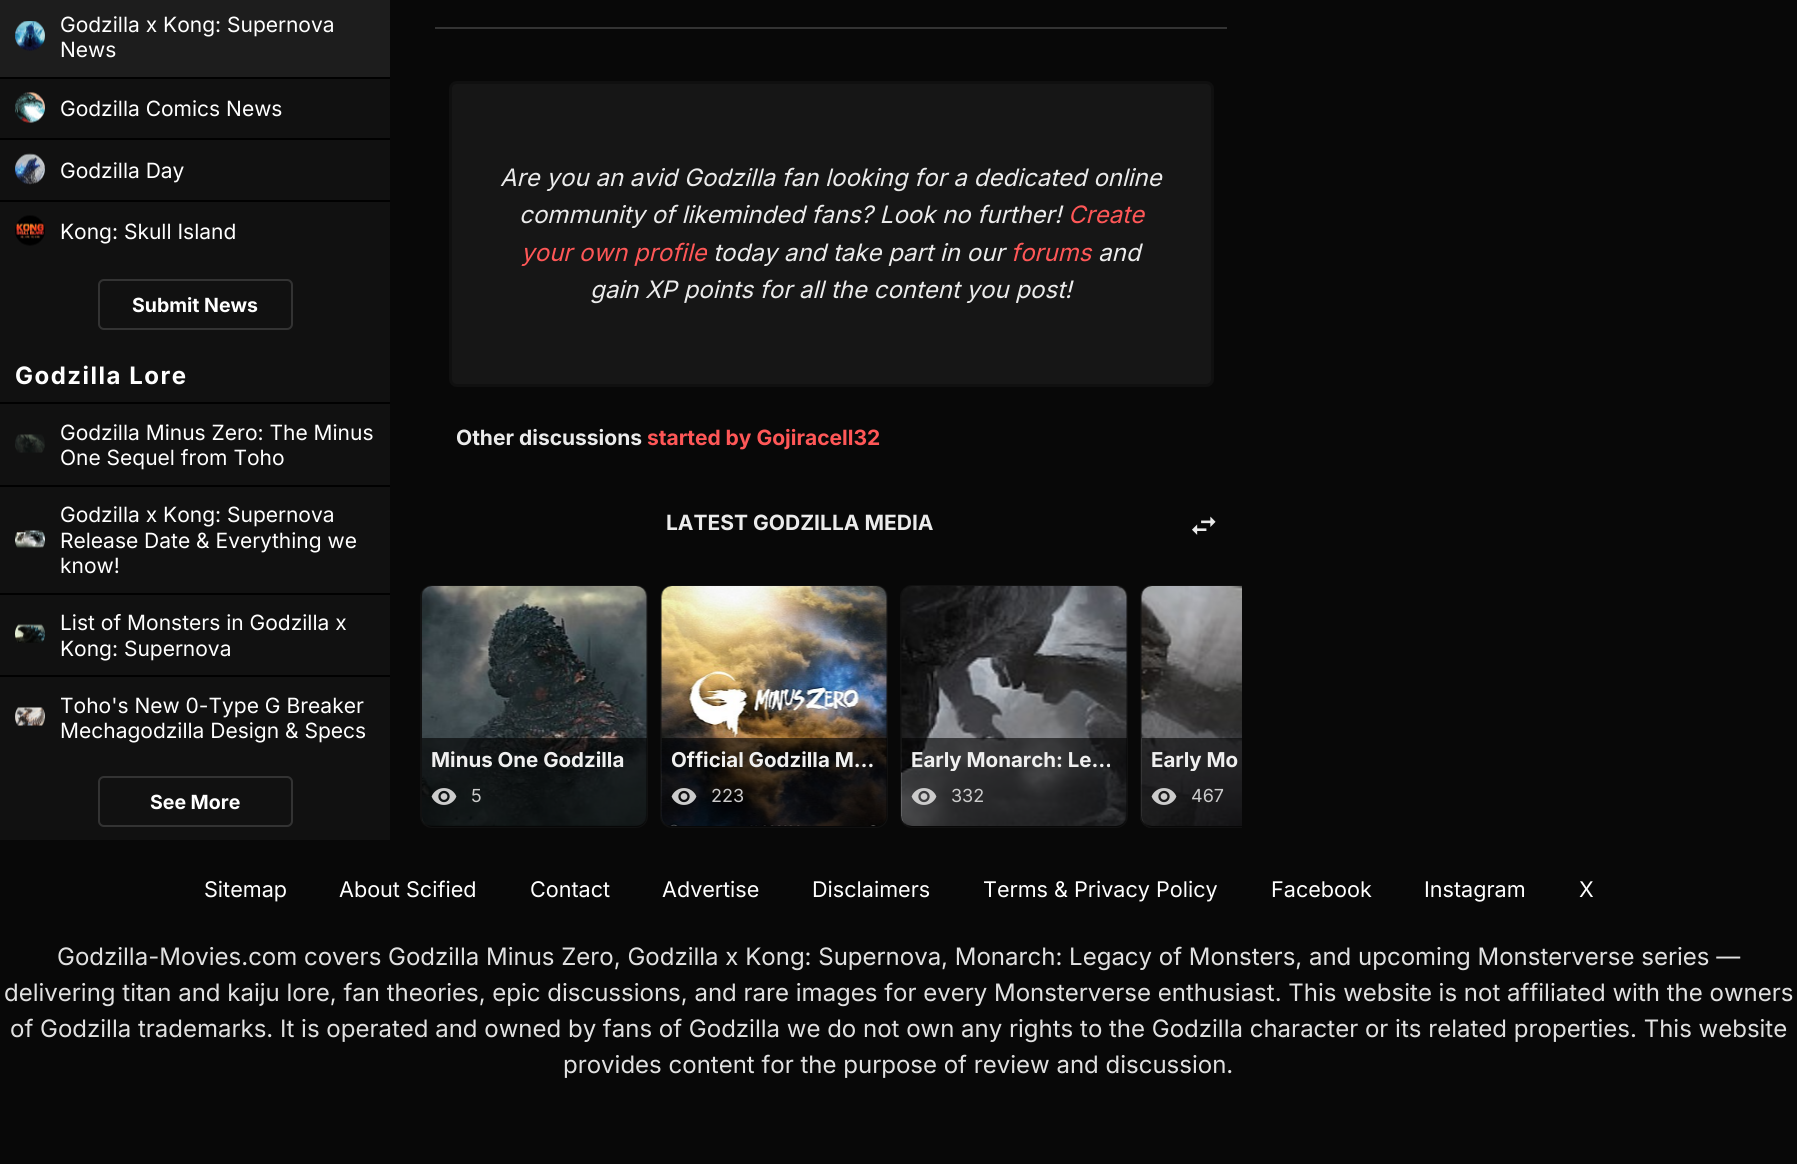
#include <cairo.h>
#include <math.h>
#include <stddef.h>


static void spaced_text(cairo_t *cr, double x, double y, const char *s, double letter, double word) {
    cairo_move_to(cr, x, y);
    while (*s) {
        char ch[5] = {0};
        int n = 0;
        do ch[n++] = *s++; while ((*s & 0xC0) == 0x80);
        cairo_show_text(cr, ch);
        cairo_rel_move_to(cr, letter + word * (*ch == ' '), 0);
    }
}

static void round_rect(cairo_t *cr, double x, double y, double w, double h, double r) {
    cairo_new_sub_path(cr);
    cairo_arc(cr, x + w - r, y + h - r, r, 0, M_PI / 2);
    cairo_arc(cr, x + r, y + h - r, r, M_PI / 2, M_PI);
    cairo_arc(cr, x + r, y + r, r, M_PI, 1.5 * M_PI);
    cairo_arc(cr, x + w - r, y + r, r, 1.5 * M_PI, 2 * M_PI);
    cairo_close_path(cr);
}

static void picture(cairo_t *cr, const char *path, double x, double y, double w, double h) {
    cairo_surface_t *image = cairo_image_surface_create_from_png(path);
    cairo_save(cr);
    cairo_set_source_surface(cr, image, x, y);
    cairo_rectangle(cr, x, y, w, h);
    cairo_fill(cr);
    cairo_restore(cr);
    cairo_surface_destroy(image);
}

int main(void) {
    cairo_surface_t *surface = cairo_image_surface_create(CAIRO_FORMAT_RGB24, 1797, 1164);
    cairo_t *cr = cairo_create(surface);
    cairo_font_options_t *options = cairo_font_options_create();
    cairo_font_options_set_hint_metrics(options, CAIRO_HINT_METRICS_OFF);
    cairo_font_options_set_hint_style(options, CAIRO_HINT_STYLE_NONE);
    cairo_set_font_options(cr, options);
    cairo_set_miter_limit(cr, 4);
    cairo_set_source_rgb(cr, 0.035, 0.035, 0.035);
    cairo_paint(cr);
    cairo_set_source_rgb(cr, 0.067, 0.067, 0.067);
    cairo_rectangle(cr, 0, 79, 390, 761);
    cairo_fill(cr);
    cairo_set_source_rgb(cr, 0.114, 0.114, 0.114);
    cairo_rectangle(cr, 0, 0, 390, 77);
    cairo_fill(cr);
    picture(cr, "img1.png", 15, 21, 30, 30);
    cairo_select_font_face(cr, "Inter", CAIRO_FONT_SLANT_NORMAL, CAIRO_FONT_WEIGHT_NORMAL);
    cairo_set_font_size(cr, 21);
    cairo_set_source_rgb(cr, 1, 1, 1);
    cairo_move_to(cr, 60, 32);
    cairo_show_text(cr, "Godzilla x Kong: Supernova");
    cairo_move_to(cr, 60, 57);
    cairo_show_text(cr, "News");
    cairo_set_source_rgb(cr, 0.004, 0.004, 0.004);
    cairo_rectangle(cr, 0, 77, 390, 2);
    cairo_fill(cr);
    picture(cr, "img2.png", 15, 92, 30, 31);
    cairo_set_source_rgb(cr, 1, 1, 1);
    cairo_move_to(cr, 60, 116);
    cairo_show_text(cr, "Godzilla Comics News");
    cairo_set_source_rgb(cr, 0.004, 0.004, 0.004);
    cairo_rectangle(cr, 0, 138, 390, 2);
    cairo_fill(cr);
    picture(cr, "img3.png", 15, 153, 30, 32);
    cairo_set_source_rgb(cr, 1, 1, 1);
    cairo_move_to(cr, 60, 178);
    cairo_show_text(cr, "Godzilla Day");
    cairo_set_source_rgb(cr, 0.004, 0.004, 0.004);
    cairo_rectangle(cr, 0, 200, 390, 2);
    cairo_fill(cr);
    picture(cr, "img4.png", 15, 215, 30, 31);
    cairo_set_source_rgb(cr, 1, 1, 1);
    cairo_move_to(cr, 60, 239);
    cairo_show_text(cr, "Kong: Skull Island");
    round_rect(cr, 99, 280, 193, 49, 5);
    cairo_set_source_rgb(cr, 0.2, 0.2, 0.2);
    cairo_stroke(cr);
    cairo_select_font_face(cr, "Inter", CAIRO_FONT_SLANT_NORMAL, CAIRO_FONT_WEIGHT_BOLD);
    cairo_set_font_size(cr, 19.5);
    cairo_set_source_rgb(cr, 1, 1, 1);
    cairo_move_to(cr, 132, 312);
    cairo_show_text(cr, "Submit News");
    cairo_set_font_size(cr, 24);
    spaced_text(cr, 15, 384, "Godzilla Lore", 1.5, 0);
    cairo_set_source_rgb(cr, 0.004, 0.004, 0.004);
    cairo_rectangle(cr, 0, 402, 390, 2);
    cairo_fill(cr);
    picture(cr, "img5.png", 15, 434, 30, 19);
    cairo_select_font_face(cr, "Inter", CAIRO_FONT_SLANT_NORMAL, CAIRO_FONT_WEIGHT_NORMAL);
    cairo_set_font_size(cr, 21);
    cairo_set_source_rgb(cr, 1, 1, 1);
    cairo_move_to(cr, 60, 440);
    cairo_show_text(cr, "Godzilla Minus Zero: The Minus");
    cairo_move_to(cr, 60, 465);
    cairo_show_text(cr, "One Sequel from Toho");
    cairo_set_source_rgb(cr, 0.004, 0.004, 0.004);
    cairo_rectangle(cr, 0, 485, 390, 2);
    cairo_fill(cr);
    picture(cr, "img6.png", 15, 530, 30, 18);
    cairo_set_source_rgb(cr, 1, 1, 1);
    cairo_move_to(cr, 60, 522);
    cairo_show_text(cr, "Godzilla x Kong: Supernova");
    cairo_move_to(cr, 60, 548);
    cairo_show_text(cr, "Release Date & Everything we");
    cairo_move_to(cr, 60, 573);
    cairo_show_text(cr, "know!");
    cairo_set_source_rgb(cr, 0.004, 0.004, 0.004);
    cairo_rectangle(cr, 0, 593, 390, 2);
    cairo_fill(cr);
    picture(cr, "img7.png", 15, 624, 30, 19);
    cairo_set_source_rgb(cr, 1, 1, 1);
    cairo_move_to(cr, 60, 630);
    cairo_show_text(cr, "List of Monsters in Godzilla x");
    cairo_move_to(cr, 60, 656);
    cairo_show_text(cr, "Kong: Supernova");
    cairo_set_source_rgb(cr, 0.004, 0.004, 0.004);
    cairo_rectangle(cr, 0, 675, 390, 2);
    cairo_fill(cr);
    picture(cr, "img8.png", 15, 707, 30, 19);
    cairo_set_source_rgb(cr, 1, 1, 1);
    cairo_move_to(cr, 60, 713);
    cairo_show_text(cr, "Toho's New 0-Type G Breaker");
    cairo_move_to(cr, 60, 738);
    cairo_show_text(cr, "Mechagodzilla Design & Specs");
    round_rect(cr, 99, 777, 193, 49, 5);
    cairo_set_source_rgb(cr, 0.2, 0.2, 0.2);
    cairo_stroke(cr);
    cairo_select_font_face(cr, "Inter", CAIRO_FONT_SLANT_NORMAL, CAIRO_FONT_WEIGHT_BOLD);
    cairo_set_font_size(cr, 19.5);
    cairo_set_source_rgb(cr, 1, 1, 1);
    cairo_move_to(cr, 150, 809);
    cairo_show_text(cr, "See More");
    cairo_set_source_rgb(cr, 0.2, 0.2, 0.2);
    cairo_rectangle(cr, 435, 27, 792, 2);
    cairo_fill(cr);
    cairo_set_source_rgb(cr, 0.086, 0.086, 0.086);
    round_rect(cr, 450.5, 82.5, 762, 303, 6.5);
    cairo_fill_preserve(cr);
    cairo_set_source_rgb(cr, 0.063, 0.063, 0.063);
    cairo_set_line_width(cr, 3);
    cairo_stroke(cr);
    cairo_select_font_face(cr, "Inter", CAIRO_FONT_SLANT_ITALIC, CAIRO_FONT_WEIGHT_NORMAL);
    cairo_set_font_size(cr, 24);
    cairo_set_source_rgb(cr, 0.918, 0.918, 0.918);
    cairo_move_to(cr, 500, 186);
    cairo_show_text(cr, "Are you an avid Godzilla fan looking for a dedicated online");
    cairo_move_to(cr, 519, 223);
    cairo_show_text(cr, "community of likeminded fans? Look no further!");
    cairo_set_source_rgb(cr, 1, 0.341, 0.341);
    cairo_move_to(cr, 1068, 223);
    cairo_show_text(cr, "Create");
    cairo_move_to(cr, 521, 261);
    cairo_show_text(cr, "your own profile");
    cairo_set_source_rgb(cr, 0.918, 0.918, 0.918);
    cairo_move_to(cr, 713, 261);
    cairo_show_text(cr, "today and take part in our");
    cairo_set_source_rgb(cr, 1, 0.341, 0.341);
    cairo_move_to(cr, 1011, 261);
    cairo_show_text(cr, "forums");
    cairo_set_source_rgb(cr, 0.918, 0.918, 0.918);
    cairo_move_to(cr, 1098, 261);
    cairo_show_text(cr, "and");
    cairo_move_to(cr, 590, 298);
    cairo_show_text(cr, "gain XP points for all the content you post!");
    cairo_select_font_face(cr, "Inter", CAIRO_FONT_SLANT_NORMAL, CAIRO_FONT_WEIGHT_BOLD);
    cairo_set_font_size(cr, 21);
    cairo_move_to(cr, 456, 445);
    cairo_show_text(cr, "Other discussions");
    cairo_set_source_rgb(cr, 1, 0.341, 0.341);
    cairo_move_to(cr, 647, 445);
    cairo_show_text(cr, "started by Gojiracell32");
    cairo_set_source_rgb(cr, 0.918, 0.918, 0.918);
    cairo_move_to(cr, 666, 530);
    cairo_show_text(cr, "LATEST GODZILLA MEDIA");
    picture(cr, "img9.png", 1192, 516, 24, 19);
    cairo_set_source_rgb(cr, 0.118, 0.118, 0.118);
    round_rect(cr, 421, 586, 226, 241, 11);
    cairo_fill_preserve(cr);
    cairo_set_source_rgb(cr, 0.067, 0.067, 0.067);
    cairo_set_line_width(cr, 2);
    cairo_stroke(cr);
    picture(cr, "img10.png", 422, 586, 225, 240);
    cairo_set_source_rgba(cr, 0, 0, 0, 0.6);
    cairo_new_path(cr);
    cairo_move_to(cr, 422, 738);
    cairo_line_to(cr, 647, 738);
    cairo_line_to(cr, 647, 816);
    cairo_curve_to(cr, 647, 822, 642, 827, 636, 827);
    cairo_line_to(cr, 433, 827);
    cairo_curve_to(cr, 427, 827, 422, 822, 422, 816);
    cairo_close_path(cr);
    cairo_fill(cr);
    cairo_set_font_size(cr, 20.5);
    cairo_set_source_rgb(cr, 0.941, 0.941, 0.941);
    cairo_move_to(cr, 431, 767);
    cairo_show_text(cr, "Minus One Godzilla");
    picture(cr, "img11.png", 431, 788, 26, 17);
    cairo_select_font_face(cr, "Inter", CAIRO_FONT_SLANT_NORMAL, CAIRO_FONT_WEIGHT_NORMAL);
    cairo_set_font_size(cr, 18);
    cairo_set_source_rgb(cr, 0.8, 0.8, 0.8);
    cairo_move_to(cr, 471, 802);
    cairo_show_text(cr, "5");
    cairo_set_source_rgb(cr, 0.118, 0.118, 0.118);
    round_rect(cr, 661, 586, 226, 241, 11);
    cairo_fill_preserve(cr);
    cairo_set_source_rgb(cr, 0.067, 0.067, 0.067);
    cairo_stroke(cr);
    picture(cr, "img12.png", 661, 586, 226, 240);
    cairo_set_source_rgba(cr, 0, 0, 0, 0.6);
    cairo_new_path(cr);
    cairo_move_to(cr, 662, 738);
    cairo_line_to(cr, 887, 738);
    cairo_line_to(cr, 887, 816);
    cairo_curve_to(cr, 887, 822, 882, 827, 876, 827);
    cairo_line_to(cr, 673, 827);
    cairo_curve_to(cr, 667, 827, 662, 822, 662, 816);
    cairo_close_path(cr);
    cairo_fill(cr);
    cairo_select_font_face(cr, "Inter", CAIRO_FONT_SLANT_NORMAL, CAIRO_FONT_WEIGHT_BOLD);
    cairo_set_font_size(cr, 20.5);
    cairo_set_source_rgb(cr, 0.941, 0.941, 0.941);
    cairo_move_to(cr, 671, 767);
    cairo_show_text(cr, "Official Godzilla M…");
    picture(cr, "img13.png", 671, 788, 26, 17);
    cairo_select_font_face(cr, "Inter", CAIRO_FONT_SLANT_NORMAL, CAIRO_FONT_WEIGHT_NORMAL);
    cairo_set_font_size(cr, 18);
    cairo_set_source_rgb(cr, 0.8, 0.8, 0.8);
    cairo_move_to(cr, 711, 802);
    cairo_show_text(cr, "223");
    cairo_set_source_rgb(cr, 0.118, 0.118, 0.118);
    round_rect(cr, 901, 586, 226, 241, 11);
    cairo_fill_preserve(cr);
    cairo_set_source_rgb(cr, 0.067, 0.067, 0.067);
    cairo_stroke(cr);
    picture(cr, "img14.png", 901, 586, 226, 240);
    cairo_set_source_rgba(cr, 0, 0, 0, 0.6);
    cairo_new_path(cr);
    cairo_move_to(cr, 902, 738);
    cairo_line_to(cr, 1127, 738);
    cairo_line_to(cr, 1127, 816);
    cairo_curve_to(cr, 1127, 822, 1122, 827, 1116, 827);
    cairo_line_to(cr, 913, 827);
    cairo_curve_to(cr, 907, 827, 902, 822, 902, 816);
    cairo_close_path(cr);
    cairo_fill(cr);
    cairo_save(cr);
    cairo_rectangle(cr, 911, 747, 207, 24);
    cairo_clip(cr);
    cairo_select_font_face(cr, "Inter", CAIRO_FONT_SLANT_NORMAL, CAIRO_FONT_WEIGHT_BOLD);
    cairo_set_font_size(cr, 20.5);
    cairo_set_source_rgb(cr, 0.941, 0.941, 0.941);
    cairo_move_to(cr, 911, 767);
    cairo_show_text(cr, "Early Monarch: Le…");
    cairo_restore(cr);
    picture(cr, "img15.png", 911, 788, 26, 17);
    cairo_set_source_rgb(cr, 0.8, 0.8, 0.8);
    cairo_move_to(cr, 951, 802);
    cairo_show_text(cr, "332");
    cairo_set_source_rgb(cr, 0.118, 0.118, 0.118);
    cairo_new_path(cr);
    cairo_move_to(cr, 1152, 585);
    cairo_line_to(cr, 1242, 585);
    cairo_line_to(cr, 1242, 828);
    cairo_line_to(cr, 1152, 828);
    cairo_curve_to(cr, 1145.5, 828, 1140, 822.5, 1140, 816);
    cairo_line_to(cr, 1140, 597);
    cairo_curve_to(cr, 1140, 590.5, 1145.5, 585, 1152, 585);
    cairo_close_path(cr);
    cairo_fill(cr);
    cairo_save(cr);
    cairo_rectangle(cr, 420, 573, 822, 267);
    cairo_clip(cr);
    round_rect(cr, 1141, 586, 226, 241, 11);
    cairo_set_source_rgb(cr, 0.067, 0.067, 0.067);
    cairo_stroke(cr);
    cairo_restore(cr);
    picture(cr, "img16.png", 1141, 586, 101, 240);
    cairo_set_source_rgba(cr, 0, 0, 0, 0.6);
    cairo_new_path(cr);
    cairo_move_to(cr, 1142, 738);
    cairo_line_to(cr, 1242, 738);
    cairo_line_to(cr, 1242, 827);
    cairo_line_to(cr, 1153, 827);
    cairo_curve_to(cr, 1147, 827, 1142, 822, 1142, 816);
    cairo_close_path(cr);
    cairo_fill(cr);
    cairo_save(cr);
    cairo_rectangle(cr, 1151, 747, 91, 24);
    cairo_clip(cr);
    cairo_select_font_face(cr, "Inter", CAIRO_FONT_SLANT_NORMAL, CAIRO_FONT_WEIGHT_BOLD);
    cairo_set_font_size(cr, 20.5);
    cairo_set_source_rgb(cr, 0.941, 0.941, 0.941);
    cairo_move_to(cr, 1151, 767);
    cairo_show_text(cr, "Early Mo");
    cairo_restore(cr);
    picture(cr, "img17.png", 1151, 788, 26, 17);
    cairo_set_source_rgb(cr, 0.8, 0.8, 0.8);
    cairo_move_to(cr, 1191, 802);
    cairo_show_text(cr, "467");
    cairo_set_font_size(cr, 21.6);
    cairo_set_source_rgb(cr, 1, 1, 1);
    cairo_move_to(cr, 204, 897);
    cairo_show_text(cr, "Sitemap");
    cairo_move_to(cr, 339, 897);
    cairo_show_text(cr, "About Scified");
    cairo_move_to(cr, 530, 897);
    cairo_show_text(cr, "Contact");
    cairo_move_to(cr, 662, 897);
    cairo_show_text(cr, "Advertise");
    cairo_move_to(cr, 812, 897);
    cairo_show_text(cr, "Disclaimers");
    cairo_move_to(cr, 983, 897);
    cairo_show_text(cr, "Terms & Privacy Policy");
    cairo_move_to(cr, 1271, 897);
    cairo_show_text(cr, "Facebook");
    cairo_move_to(cr, 1424, 897);
    cairo_show_text(cr, "Instagram");
    cairo_move_to(cr, 1579, 897);
    cairo_show_text(cr, "X");
    cairo_set_font_size(cr, 24);
    cairo_set_source_rgb(cr, 0.882, 0.882, 0.882);
    cairo_move_to(cr, 57, 965);
    cairo_show_text(cr, "Godzilla-Movies.com covers Godzilla Minus Zero, Godzilla x Kong: Supernova, Monarch: Legacy of Monsters, and upcoming Monsterverse series —");
    cairo_move_to(cr, 4, 1001);
    cairo_show_text(cr, "delivering titan and kaiju lore, fan theories, epic discussions, and rare images for every Monsterverse enthusiast. This website is not affiliated with the owners");
    cairo_move_to(cr, 10, 1037);
    cairo_show_text(cr, "of Godzilla trademarks. It is operated and owned by fans of Godzilla we do not own any rights to the Godzilla character or its related properties. This website");
    cairo_move_to(cr, 563, 1073);
    cairo_show_text(cr, "provides content for the purpose of review and discussion.");
    cairo_surface_write_to_png(surface, "page.png");
    cairo_font_options_destroy(options);
    cairo_destroy(cr);
    cairo_surface_destroy(surface);
    return 0;
}
